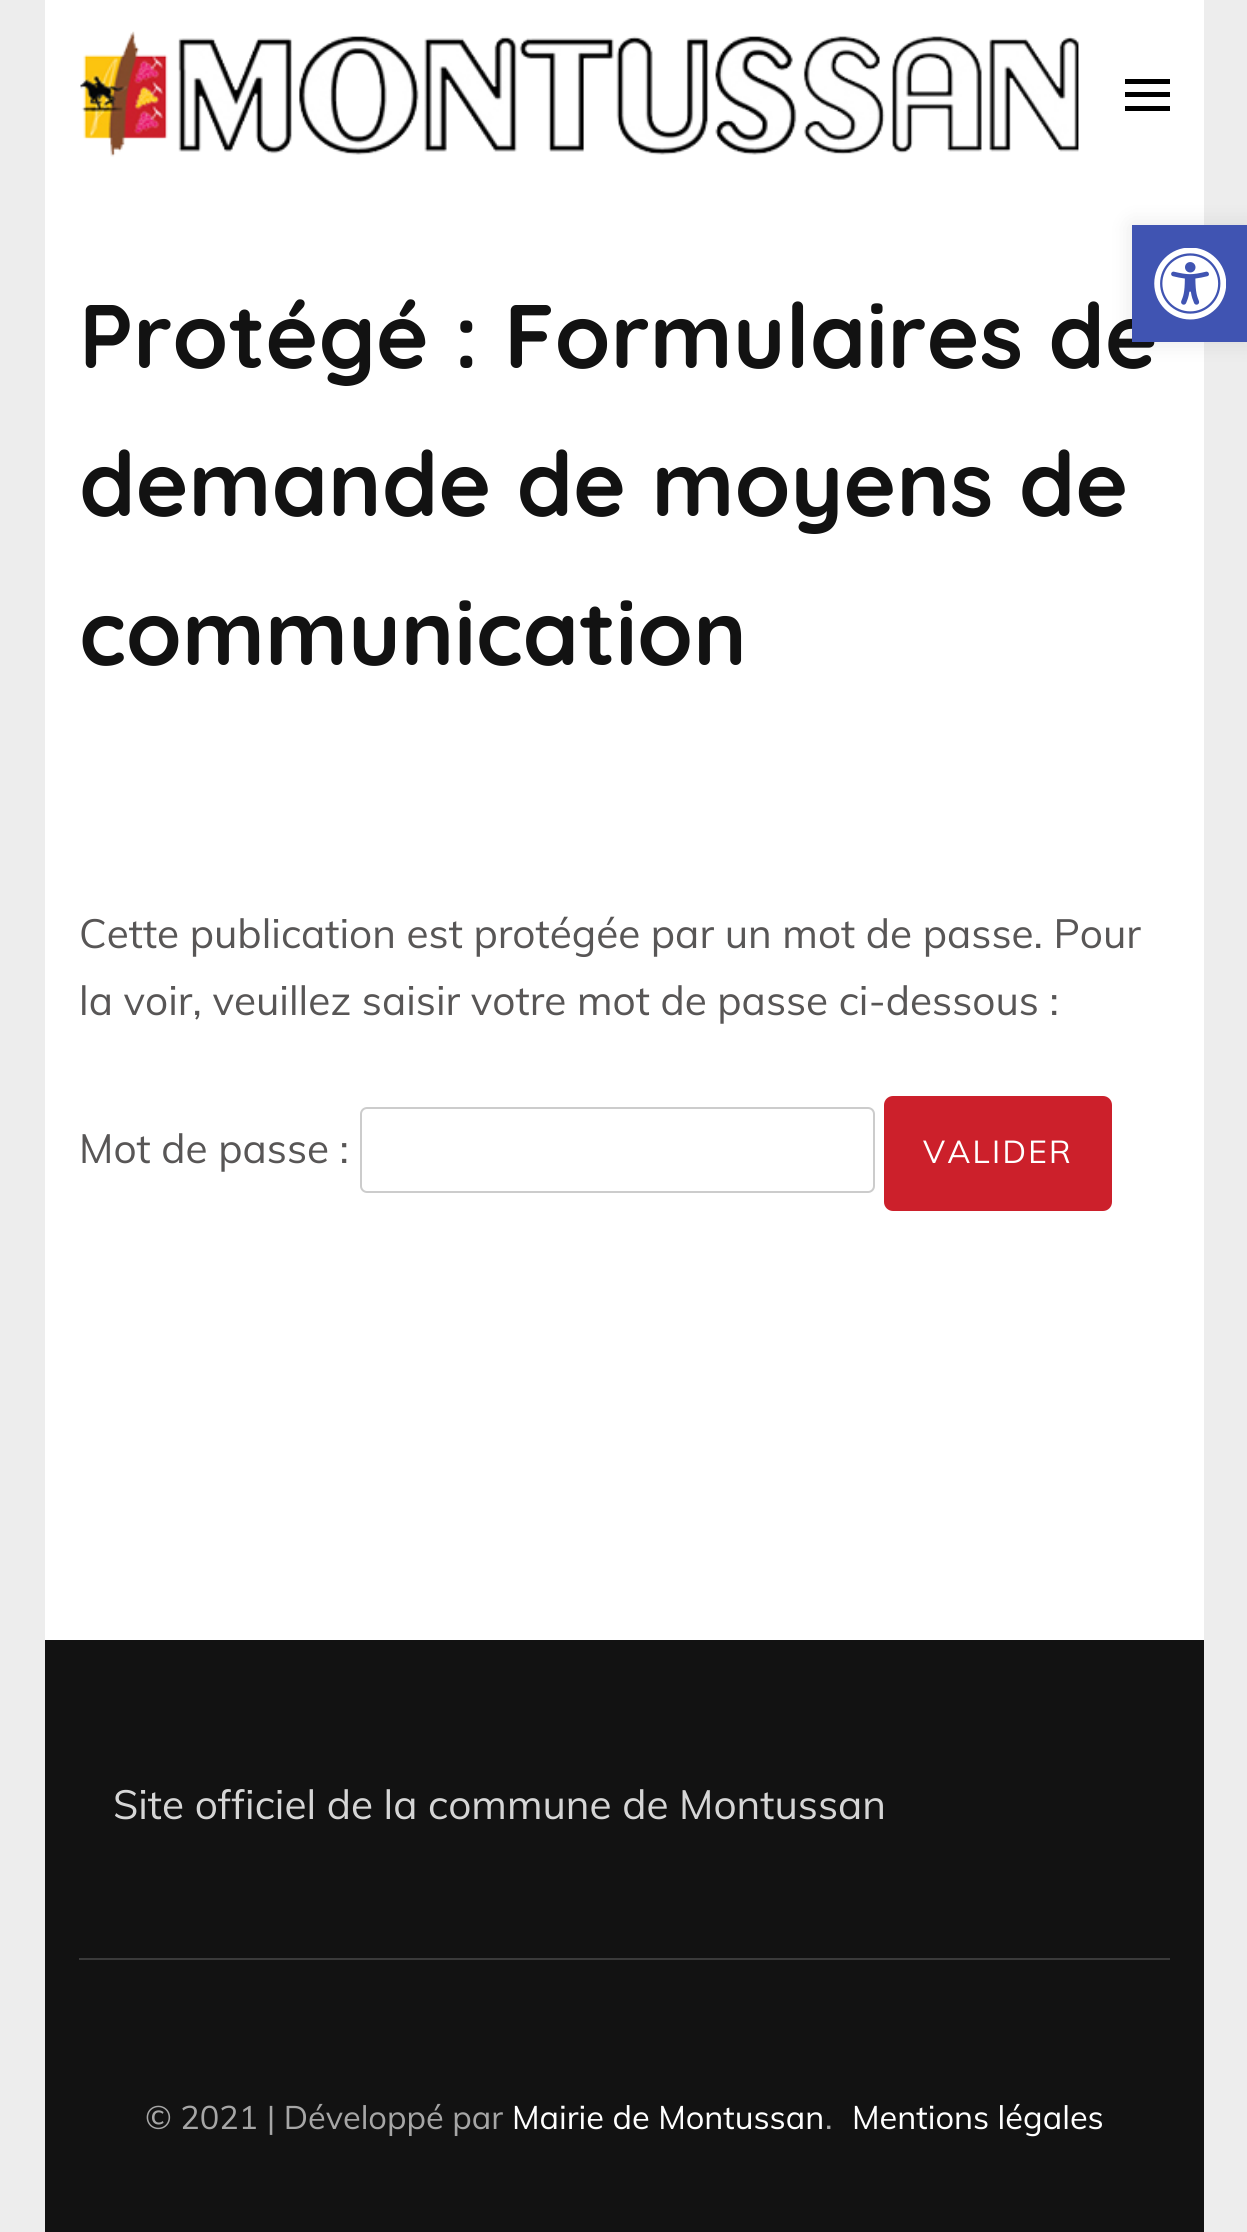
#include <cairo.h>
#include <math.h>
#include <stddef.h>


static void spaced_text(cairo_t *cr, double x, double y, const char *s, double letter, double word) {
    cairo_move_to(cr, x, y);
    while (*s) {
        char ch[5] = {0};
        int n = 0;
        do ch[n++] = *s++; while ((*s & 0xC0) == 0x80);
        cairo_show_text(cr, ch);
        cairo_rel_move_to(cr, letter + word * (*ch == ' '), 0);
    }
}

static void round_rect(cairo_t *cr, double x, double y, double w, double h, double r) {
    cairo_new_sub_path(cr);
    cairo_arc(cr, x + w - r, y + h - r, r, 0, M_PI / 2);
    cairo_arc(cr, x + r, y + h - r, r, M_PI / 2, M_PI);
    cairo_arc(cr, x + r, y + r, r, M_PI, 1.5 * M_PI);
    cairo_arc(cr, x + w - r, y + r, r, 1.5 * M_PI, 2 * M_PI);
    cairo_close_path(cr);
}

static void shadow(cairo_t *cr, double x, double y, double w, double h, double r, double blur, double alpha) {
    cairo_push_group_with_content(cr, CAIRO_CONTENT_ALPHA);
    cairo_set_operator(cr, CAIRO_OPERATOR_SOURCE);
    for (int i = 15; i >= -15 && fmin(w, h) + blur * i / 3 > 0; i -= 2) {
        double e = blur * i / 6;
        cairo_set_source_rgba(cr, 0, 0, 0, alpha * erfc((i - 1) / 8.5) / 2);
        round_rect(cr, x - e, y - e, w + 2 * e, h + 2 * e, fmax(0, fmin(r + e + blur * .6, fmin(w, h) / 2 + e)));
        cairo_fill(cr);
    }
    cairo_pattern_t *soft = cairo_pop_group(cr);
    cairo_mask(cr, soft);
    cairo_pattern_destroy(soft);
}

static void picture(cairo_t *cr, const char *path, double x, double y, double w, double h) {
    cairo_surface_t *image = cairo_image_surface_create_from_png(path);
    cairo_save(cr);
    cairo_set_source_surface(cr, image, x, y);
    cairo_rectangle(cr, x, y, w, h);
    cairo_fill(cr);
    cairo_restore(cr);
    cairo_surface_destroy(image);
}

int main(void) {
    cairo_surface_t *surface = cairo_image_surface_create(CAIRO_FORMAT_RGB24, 1247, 2232);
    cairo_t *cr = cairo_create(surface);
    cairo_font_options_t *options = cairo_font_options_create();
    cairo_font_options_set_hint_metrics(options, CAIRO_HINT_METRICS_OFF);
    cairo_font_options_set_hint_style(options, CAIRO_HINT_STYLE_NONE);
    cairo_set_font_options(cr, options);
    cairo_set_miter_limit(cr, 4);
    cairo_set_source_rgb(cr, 0.929, 0.929, 0.929);
    cairo_paint(cr);
    cairo_set_source_rgb(cr, 1, 1, 1);
    cairo_rectangle(cr, 45, 0, 1159, 1640);
    cairo_fill(cr);
    picture(cr, "img1.png", 80, 31, 999, 126);
    cairo_set_source_rgb(cr, 0, 0, 0);
    cairo_rectangle(cr, 1125, 79, 45, 5);
    cairo_fill(cr);
    cairo_rectangle(cr, 1125, 92, 45, 5);
    cairo_fill(cr);
    cairo_rectangle(cr, 1125, 106, 45, 5);
    cairo_fill(cr);
    cairo_select_font_face(cr, "Quicksand", CAIRO_FONT_SLANT_NORMAL, CAIRO_FONT_WEIGHT_BOLD);
    cairo_set_font_size(cr, 90);
    cairo_set_source_rgb(cr, 0.071, 0.071, 0.071);
    cairo_move_to(cr, 79, 368);
    cairo_show_text(cr, "Protégé : Formulaires de");
    cairo_move_to(cr, 79, 516);
    cairo_show_text(cr, "demande de moyens de");
    cairo_move_to(cr, 79, 665);
    cairo_show_text(cr, "communication");
    cairo_select_font_face(cr, "Muli", CAIRO_FONT_SLANT_NORMAL, CAIRO_FONT_WEIGHT_NORMAL);
    cairo_set_font_size(cr, 40.5);
    cairo_set_source_rgb(cr, 0.345, 0.337, 0.337);
    cairo_move_to(cr, 79, 948);
    cairo_show_text(cr, "Cette publication est protégée par un mot de passe. Pour");
    cairo_move_to(cr, 79, 1015);
    cairo_show_text(cr, "la voir, veuillez saisir votre mot de passe ci-dessous :");
    cairo_move_to(cr, 79, 1163);
    cairo_show_text(cr, "Mot de passe :");
    round_rect(cr, 361, 1108, 513, 84, 6);
    cairo_set_source_rgb(cr, 0.8, 0.8, 0.8);
    cairo_stroke(cr);
    cairo_set_source_rgb(cr, 0.8, 0.125, 0.169);
    round_rect(cr, 886.5, 1098.5, 223, 110, 6.5);
    cairo_fill_preserve(cr);
    cairo_set_line_width(cr, 5);
    cairo_stroke(cr);
    cairo_set_font_size(cr, 31.5);
    cairo_set_source_rgb(cr, 1, 1, 1);
    spaced_text(cr, 923, 1163, "VALIDER", 2.25, 0);
    cairo_set_source_rgb(cr, 0.071, 0.071, 0.071);
    cairo_rectangle(cr, 45, 1640, 1159, 592);
    cairo_fill(cr);
    cairo_set_source_rgb(cr, 0.227, 0.227, 0.227);
    cairo_rectangle(cr, 79, 1958, 1091, 2);
    cairo_fill(cr);
    cairo_set_font_size(cr, 40.5);
    cairo_set_source_rgb(cr, 0.839, 0.839, 0.839);
    cairo_move_to(cr, 113, 1819);
    cairo_show_text(cr, "Site officiel de la commune de Montussan");
    cairo_set_font_size(cr, 32.5);
    cairo_set_source_rgb(cr, 0.651, 0.651, 0.651);
    cairo_move_to(cr, 145, 2129);
    cairo_show_text(cr, "© 2021 | Développé par");
    cairo_set_source_rgb(cr, 1, 1, 1);
    cairo_move_to(cr, 512, 2129);
    cairo_show_text(cr, "Mairie de Montussan");
    cairo_set_source_rgb(cr, 0.651, 0.651, 0.651);
    cairo_move_to(cr, 825, 2129);
    cairo_show_text(cr, ".");
    cairo_set_source_rgb(cr, 1, 1, 1);
    cairo_move_to(cr, 852, 2129);
    cairo_show_text(cr, "Mentions légales");
    cairo_set_source_rgb(cr, 0, 0, 0);
    shadow(cr, 1132, 225, 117, 117, 0, 11, 0.1);
    cairo_set_source_rgb(cr, 0.251, 0.329, 0.698);
    cairo_rectangle(cr, 1132, 225, 115, 117);
    cairo_fill(cr);
    picture(cr, "img2.png", 1154, 248, 72, 72);
    cairo_surface_write_to_png(surface, "page.png");
    cairo_font_options_destroy(options);
    cairo_destroy(cr);
    cairo_surface_destroy(surface);
    return 0;
}
